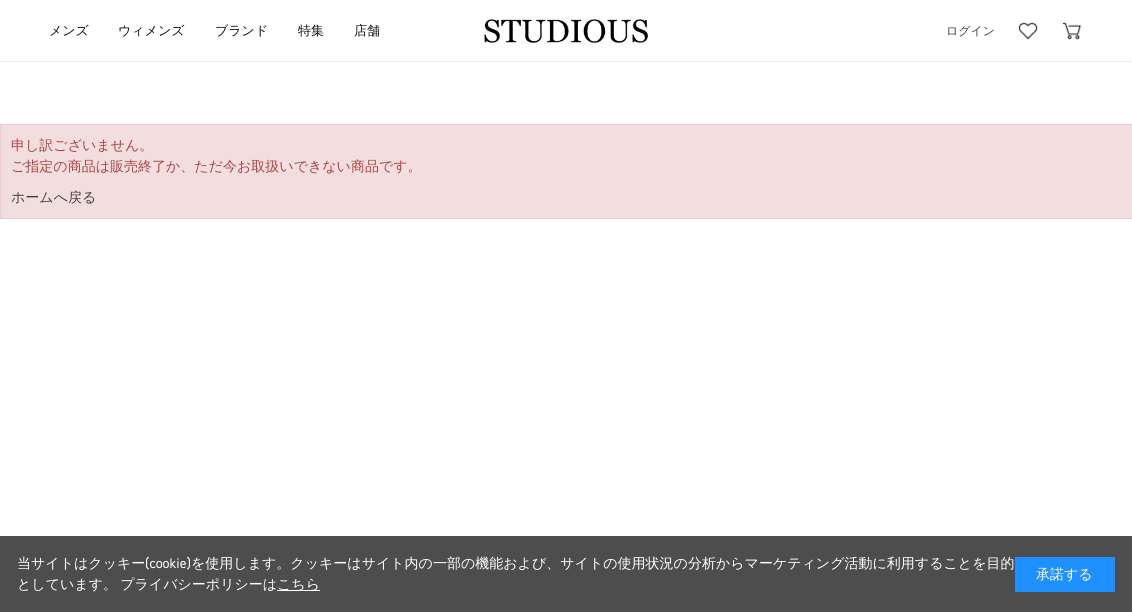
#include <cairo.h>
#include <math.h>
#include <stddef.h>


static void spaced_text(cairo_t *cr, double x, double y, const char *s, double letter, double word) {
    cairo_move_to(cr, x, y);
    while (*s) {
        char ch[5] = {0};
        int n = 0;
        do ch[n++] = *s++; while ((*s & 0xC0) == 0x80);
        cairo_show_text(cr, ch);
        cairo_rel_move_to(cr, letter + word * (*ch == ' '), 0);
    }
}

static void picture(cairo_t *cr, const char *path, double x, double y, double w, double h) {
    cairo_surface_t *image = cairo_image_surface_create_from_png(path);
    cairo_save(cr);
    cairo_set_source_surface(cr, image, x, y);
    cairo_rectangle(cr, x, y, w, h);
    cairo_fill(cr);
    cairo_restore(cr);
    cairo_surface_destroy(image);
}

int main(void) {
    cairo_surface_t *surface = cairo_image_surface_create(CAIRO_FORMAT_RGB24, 1132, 612);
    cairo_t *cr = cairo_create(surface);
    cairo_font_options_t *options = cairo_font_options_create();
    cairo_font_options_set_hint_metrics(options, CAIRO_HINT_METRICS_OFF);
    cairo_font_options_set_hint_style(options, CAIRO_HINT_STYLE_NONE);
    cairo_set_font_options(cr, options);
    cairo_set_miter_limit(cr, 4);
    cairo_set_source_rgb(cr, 1, 1, 1);
    cairo_paint(cr);
    cairo_set_source_rgb(cr, 0.929, 0.929, 0.929);
    cairo_rectangle(cr, 0, 61, 1132, 1);
    cairo_fill(cr);
    cairo_select_font_face(cr, "WenQuanYi Zen Hei Medium", CAIRO_FONT_SLANT_NORMAL, CAIRO_FONT_WEIGHT_NORMAL);
    cairo_set_font_size(cr, 13);
    cairo_set_source_rgb(cr, 0.071, 0.071, 0.071);
    cairo_move_to(cr, 49, 35);
    cairo_show_text(cr, "メンズ");
    cairo_move_to(cr, 118, 35);
    cairo_show_text(cr, "ウィメンズ");
    cairo_move_to(cr, 215, 35);
    cairo_show_text(cr, "ブランド");
    cairo_move_to(cr, 298, 35);
    cairo_show_text(cr, "特集");
    cairo_move_to(cr, 354, 35);
    cairo_show_text(cr, "店舗");
    picture(cr, "img1.png", 484, 19, 164, 24);
    cairo_set_font_size(cr, 12);
    cairo_set_source_rgb(cr, 0.267, 0.267, 0.267);
    cairo_move_to(cr, 946, 35);
    cairo_show_text(cr, "ログイン");
    picture(cr, "img2.png", 1018, 22, 20, 18);
    picture(cr, "img3.png", 1062, 22, 20, 18);
    cairo_set_source_rgb(cr, 0.949, 0.871, 0.871);
    cairo_rectangle(cr, 0.5, 124.5, 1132, 94);
    cairo_fill_preserve(cr);
    cairo_set_source_rgb(cr, 0.922, 0.8, 0.82);
    cairo_set_line_width(cr, 1);
    cairo_stroke(cr);
    cairo_set_font_size(cr, 14);
    cairo_set_source_rgb(cr, 0.663, 0.267, 0.259);
    cairo_move_to(cr, 11, 150);
    cairo_show_text(cr, "申し訳ございません。");
    cairo_move_to(cr, 11, 171);
    cairo_show_text(cr, "ご指定の商品は販売終了か、ただ今お取扱いできない商品です。");
    cairo_set_source_rgb(cr, 0.267, 0.267, 0.267);
    cairo_move_to(cr, 11, 202);
    cairo_show_text(cr, "ホームへ戻る");
    cairo_set_source_rgb(cr, 0.302, 0.302, 0.302);
    cairo_rectangle(cr, 0, 536, 1132, 76);
    cairo_fill(cr);
    cairo_set_source_rgb(cr, 1, 1, 1);
    cairo_move_to(cr, 17, 568);
    cairo_show_text(cr, "当サイトはクッキー");
    cairo_select_font_face(cr, "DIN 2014", CAIRO_FONT_SLANT_NORMAL, CAIRO_FONT_WEIGHT_NORMAL);
    cairo_move_to(cr, 145, 568);
    cairo_show_text(cr, "(cookie)");
    cairo_select_font_face(cr, "WenQuanYi Zen Hei Medium", CAIRO_FONT_SLANT_NORMAL, CAIRO_FONT_WEIGHT_NORMAL);
    cairo_move_to(cr, 191, 568);
    cairo_show_text(cr, "を使用します。クッキーはサイト内の一部の機能および、サイトの使用状況の分析からマーケティング活動に利用することを目的");
    spaced_text(cr, 17, 589, "としています。 プライバシーポリシーは", 0, -1);
    cairo_rectangle(cr, 277, 590, 43, 1);
    cairo_fill(cr);
    cairo_move_to(cr, 277, 589);
    cairo_show_text(cr, "こちら");
    cairo_set_source_rgb(cr, 0.118, 0.565, 1);
    cairo_rectangle(cr, 1015, 557, 100, 35);
    cairo_fill(cr);
    cairo_set_source_rgb(cr, 1, 1, 1);
    cairo_move_to(cr, 1036, 579);
    cairo_show_text(cr, "承諾する");
    cairo_surface_write_to_png(surface, "page.png");
    cairo_font_options_destroy(options);
    cairo_destroy(cr);
    cairo_surface_destroy(surface);
    return 0;
}
